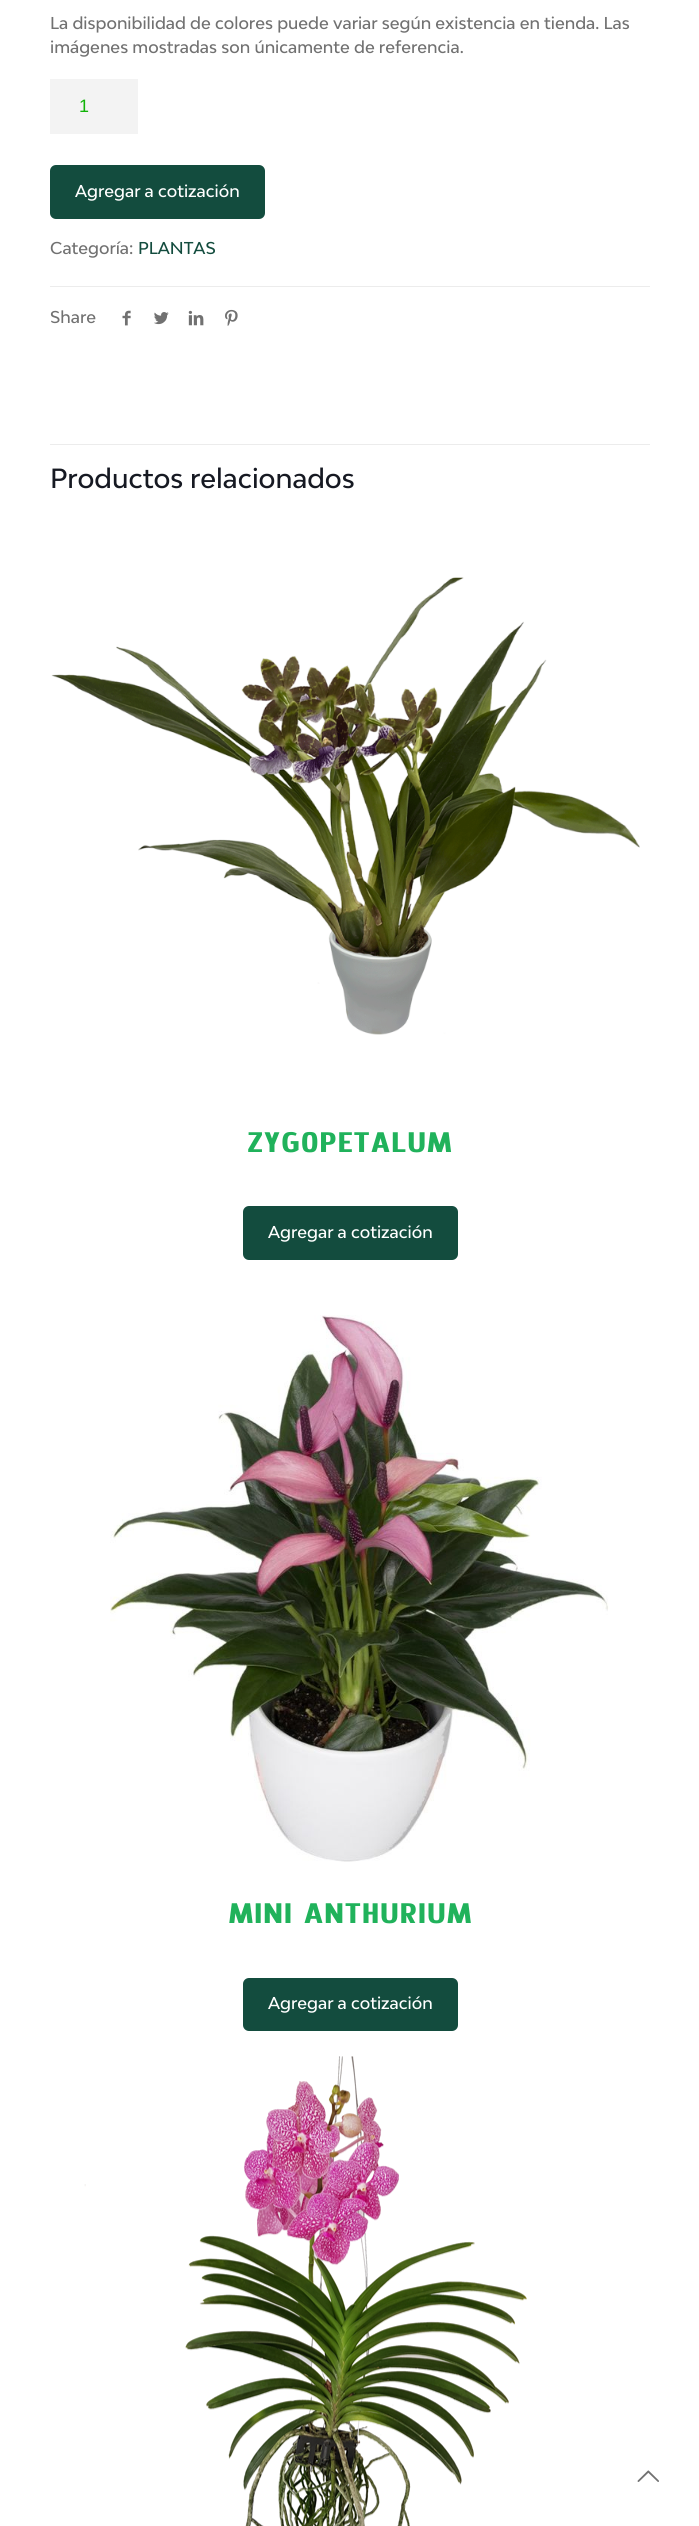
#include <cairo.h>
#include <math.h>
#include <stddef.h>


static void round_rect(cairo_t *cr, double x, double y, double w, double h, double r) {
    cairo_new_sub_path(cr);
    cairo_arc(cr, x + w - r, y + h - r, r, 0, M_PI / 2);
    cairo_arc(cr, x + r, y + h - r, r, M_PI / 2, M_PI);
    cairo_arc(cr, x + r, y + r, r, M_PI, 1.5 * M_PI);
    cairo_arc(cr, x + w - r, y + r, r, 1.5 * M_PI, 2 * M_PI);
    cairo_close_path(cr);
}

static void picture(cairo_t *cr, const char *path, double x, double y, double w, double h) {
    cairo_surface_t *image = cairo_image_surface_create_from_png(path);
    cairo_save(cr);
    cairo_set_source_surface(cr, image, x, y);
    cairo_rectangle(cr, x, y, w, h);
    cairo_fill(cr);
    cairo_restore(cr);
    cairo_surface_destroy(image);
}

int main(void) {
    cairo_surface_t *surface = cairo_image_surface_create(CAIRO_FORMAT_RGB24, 699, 2526);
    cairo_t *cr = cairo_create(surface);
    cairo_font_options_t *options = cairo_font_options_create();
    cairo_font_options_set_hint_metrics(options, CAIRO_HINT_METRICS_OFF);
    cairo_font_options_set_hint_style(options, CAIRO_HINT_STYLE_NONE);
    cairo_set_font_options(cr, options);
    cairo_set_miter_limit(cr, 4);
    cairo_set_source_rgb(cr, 1, 1, 1);
    cairo_paint(cr);
    cairo_select_font_face(cr, "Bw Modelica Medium", CAIRO_FONT_SLANT_NORMAL, CAIRO_FONT_WEIGHT_NORMAL);
    cairo_set_font_size(cr, 16.25);
    cairo_set_source_rgb(cr, 0.443, 0.443, 0.443);
    cairo_move_to(cr, 50, 29);
    cairo_show_text(cr, "La disponibilidad de colores puede variar según existencia en tienda. Las");
    cairo_move_to(cr, 50, 53);
    cairo_show_text(cr, "imágenes mostradas son únicamente de referencia.");
    cairo_set_source_rgb(cr, 0.953, 0.953, 0.953);
    cairo_rectangle(cr, 50, 79, 88, 55);
    cairo_fill(cr);
    cairo_select_font_face(cr, "Liberation Sans", CAIRO_FONT_SLANT_NORMAL, CAIRO_FONT_WEIGHT_NORMAL);
    cairo_set_font_size(cr, 18);
    cairo_set_source_rgb(cr, 0.063, 0.702, 0.031);
    cairo_move_to(cr, 79, 112);
    cairo_show_text(cr, "1");
    cairo_set_source_rgb(cr, 0.075, 0.298, 0.243);
    round_rect(cr, 50, 165, 215, 54, 6);
    cairo_fill(cr);
    cairo_select_font_face(cr, "Bw Modelica Medium", CAIRO_FONT_SLANT_NORMAL, CAIRO_FONT_WEIGHT_NORMAL);
    cairo_set_font_size(cr, 16.25);
    cairo_set_source_rgb(cr, 1, 1, 1);
    cairo_move_to(cr, 75, 197);
    cairo_show_text(cr, "Agregar a cotización");
    cairo_set_source_rgb(cr, 0.443, 0.443, 0.443);
    cairo_move_to(cr, 50, 254);
    cairo_show_text(cr, "Categoría:");
    cairo_set_source_rgb(cr, 0.075, 0.298, 0.243);
    cairo_move_to(cr, 138, 254);
    cairo_show_text(cr, "PLANTAS");
    cairo_set_source_rgb(cr, 0.922, 0.922, 0.922);
    cairo_rectangle(cr, 50, 286, 600, 1);
    cairo_fill(cr);
    cairo_set_source_rgb(cr, 0.443, 0.443, 0.443);
    cairo_move_to(cr, 50, 323);
    cairo_show_text(cr, "Share");
    picture(cr, "img1.png", 122, 310, 9, 16);
    picture(cr, "img2.png", 154, 312, 15, 13);
    picture(cr, "img3.png", 188, 310, 16, 16);
    picture(cr, "img4.png", 225, 309, 13, 17);
    cairo_set_source_rgb(cr, 0.922, 0.922, 0.922);
    cairo_rectangle(cr, 50, 444, 600, 1);
    cairo_fill(cr);
    cairo_set_font_size(cr, 26.25);
    cairo_set_source_rgb(cr, 0.086, 0.098, 0.133);
    cairo_move_to(cr, 50, 488);
    cairo_show_text(cr, "Productos relacionados");
    picture(cr, "img5.png", 51, 577, 589, 458);
    cairo_select_font_face(cr, "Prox", CAIRO_FONT_SLANT_NORMAL, CAIRO_FONT_WEIGHT_BOLD);
    cairo_set_source_rgb(cr, 0.125, 0.698, 0.357);
    cairo_move_to(cr, 247, 1152);
    cairo_show_text(cr, "ZYGOPETALUM");
    cairo_set_source_rgb(cr, 0.075, 0.298, 0.243);
    round_rect(cr, 243, 1206, 215, 54, 6);
    cairo_fill(cr);
    cairo_select_font_face(cr, "Bw Modelica Medium", CAIRO_FONT_SLANT_NORMAL, CAIRO_FONT_WEIGHT_NORMAL);
    cairo_set_font_size(cr, 16.25);
    cairo_set_source_rgb(cr, 1, 1, 1);
    cairo_move_to(cr, 268, 1238);
    cairo_show_text(cr, "Agregar a cotización");
    picture(cr, "img6.png", 110, 1315, 499, 547);
    cairo_select_font_face(cr, "Prox", CAIRO_FONT_SLANT_NORMAL, CAIRO_FONT_WEIGHT_BOLD);
    cairo_set_font_size(cr, 26.25);
    cairo_set_source_rgb(cr, 0.125, 0.698, 0.357);
    cairo_move_to(cr, 228, 1923);
    cairo_show_text(cr, "MINI ANTHURIUM");
    cairo_set_source_rgb(cr, 0.075, 0.298, 0.243);
    round_rect(cr, 243, 1978, 215, 53, 6);
    cairo_fill(cr);
    cairo_select_font_face(cr, "Bw Modelica Medium", CAIRO_FONT_SLANT_NORMAL, CAIRO_FONT_WEIGHT_NORMAL);
    cairo_set_font_size(cr, 16.25);
    cairo_set_source_rgb(cr, 1, 1, 1);
    cairo_move_to(cr, 268, 2009);
    cairo_show_text(cr, "Agregar a cotización");
    picture(cr, "img7.png", 84, 2056, 443, 470);
    picture(cr, "img8.png", 637, 2470, 22, 12);
    cairo_surface_write_to_png(surface, "page.png");
    cairo_font_options_destroy(options);
    cairo_destroy(cr);
    cairo_surface_destroy(surface);
    return 0;
}
